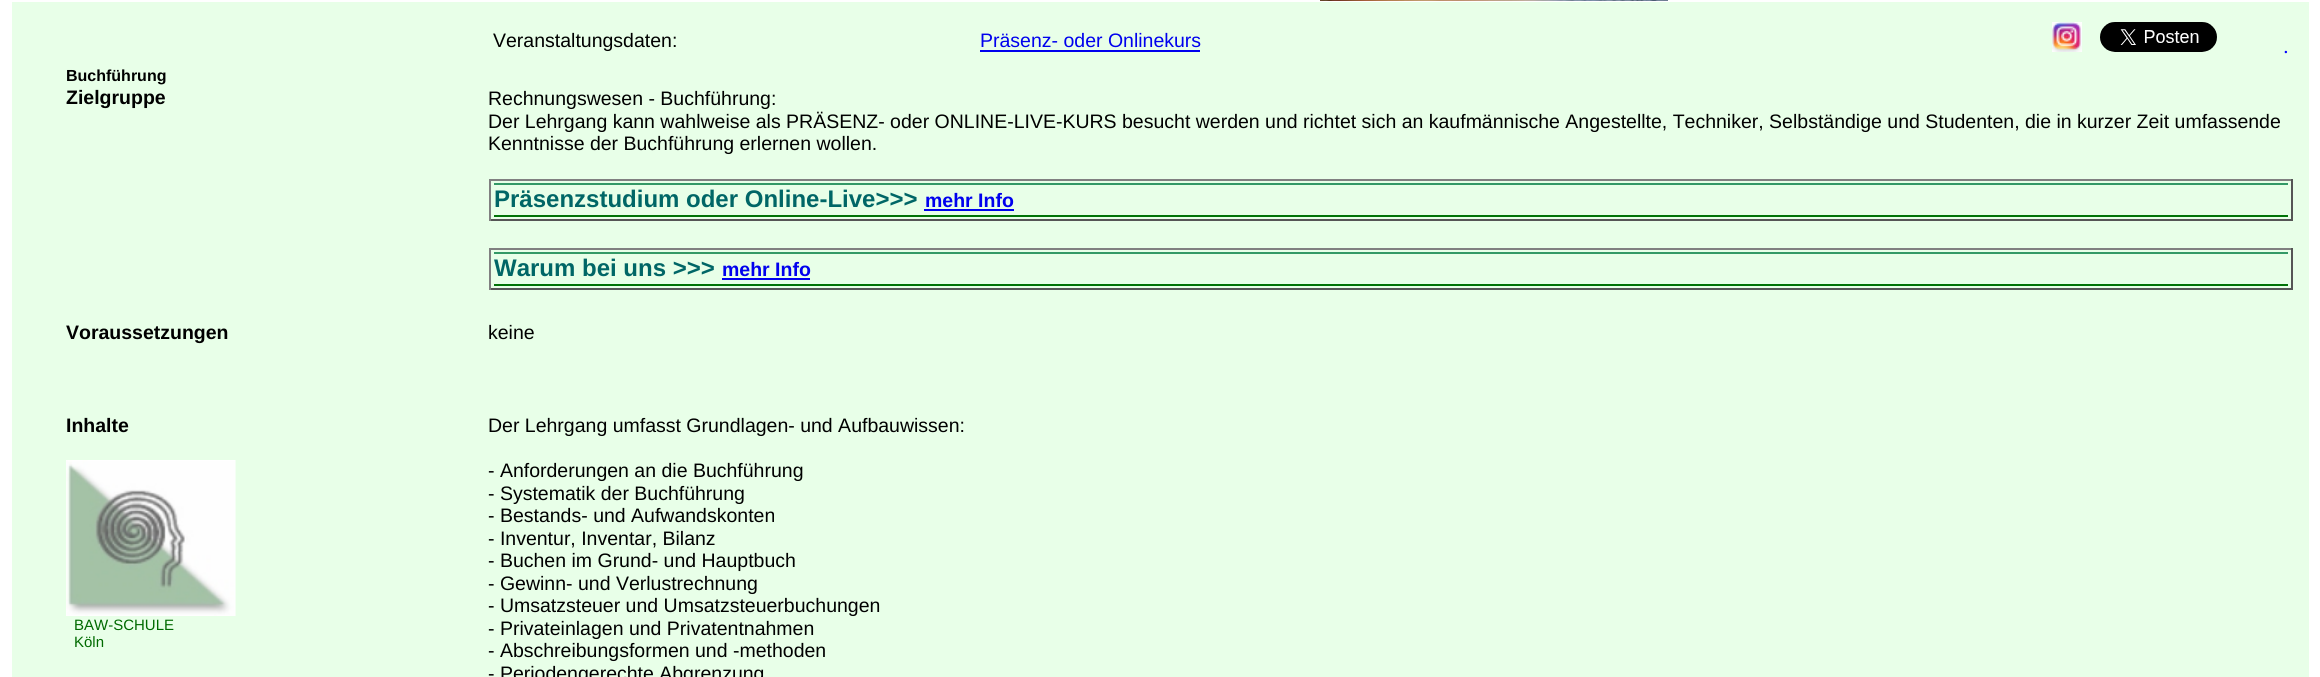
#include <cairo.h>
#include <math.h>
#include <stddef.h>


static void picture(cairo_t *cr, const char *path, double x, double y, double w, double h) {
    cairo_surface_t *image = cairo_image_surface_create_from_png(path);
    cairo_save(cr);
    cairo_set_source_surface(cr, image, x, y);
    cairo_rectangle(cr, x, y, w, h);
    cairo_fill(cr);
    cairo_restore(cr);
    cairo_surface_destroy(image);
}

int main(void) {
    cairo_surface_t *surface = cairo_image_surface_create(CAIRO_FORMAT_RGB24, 2320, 677);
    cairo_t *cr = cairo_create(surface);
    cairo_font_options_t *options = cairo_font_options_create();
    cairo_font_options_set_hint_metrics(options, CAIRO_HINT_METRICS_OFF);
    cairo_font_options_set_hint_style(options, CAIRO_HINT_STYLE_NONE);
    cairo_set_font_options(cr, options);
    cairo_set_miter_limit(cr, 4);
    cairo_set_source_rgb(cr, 1, 1, 1);
    cairo_paint(cr);
    picture(cr, "img1.png", 1320, 0, 348, 1);
    cairo_set_source_rgb(cr, 0.91, 1, 0.91);
    cairo_rectangle(cr, 12, 2, 2297, 675);
    cairo_fill(cr);
    cairo_select_font_face(cr, "Liberation Sans", CAIRO_FONT_SLANT_NORMAL, CAIRO_FONT_WEIGHT_BOLD);
    cairo_set_font_size(cr, 16);
    cairo_set_source_rgb(cr, 0, 0, 0);
    cairo_move_to(cr, 66, 81);
    cairo_show_text(cr, "Buchführung");
    cairo_set_font_size(cr, 19.5);
    cairo_move_to(cr, 66, 104);
    cairo_show_text(cr, "Zielgruppe");
    cairo_select_font_face(cr, "Liberation Sans", CAIRO_FONT_SLANT_NORMAL, CAIRO_FONT_WEIGHT_NORMAL);
    cairo_move_to(cr, 493, 47);
    cairo_show_text(cr, "Veranstaltungsdaten:");
    cairo_set_source_rgb(cr, 0, 0, 0.933);
    cairo_move_to(cr, 980, 47);
    cairo_show_text(cr, "Präsenz- oder Onlinekurs");
    cairo_rectangle(cr, 980, 50, 220, 2);
    cairo_fill(cr);
    picture(cr, "img2.png", 2052, 22, 30, 30);
    picture(cr, "img3.png", 2100, 22, 117, 30);
    cairo_select_font_face(cr, "Liberation Serif", CAIRO_FONT_SLANT_NORMAL, CAIRO_FONT_WEIGHT_BOLD);
    cairo_set_font_size(cr, 15);
    cairo_set_source_rgb(cr, 0, 0, 1);
    cairo_move_to(cr, 2284, 53);
    cairo_show_text(cr, ".");
    cairo_select_font_face(cr, "Liberation Sans", CAIRO_FONT_SLANT_NORMAL, CAIRO_FONT_WEIGHT_NORMAL);
    cairo_set_font_size(cr, 19.5);
    cairo_set_source_rgb(cr, 0, 0, 0);
    cairo_move_to(cr, 488, 105);
    cairo_show_text(cr, "Rechnungswesen - Buchführung:");
    cairo_move_to(cr, 488, 128);
    cairo_show_text(cr, "Der Lehrgang kann wahlweise als PRÄSENZ- oder ONLINE-LIVE-KURS besucht werden und richtet sich an kaufmännische Angestellte, Techniker, Selbständige und Studenten, die in kurzer Zeit umfassende");
    cairo_move_to(cr, 488, 150);
    cairo_show_text(cr, "Kenntnisse der Buchführung erlernen wollen.");
    cairo_set_source_rgb(cr, 0.502, 0.502, 0.502);
    cairo_rectangle(cr, 489, 179, 1803, 2);
    cairo_fill(cr);
    cairo_set_source_rgb(cr, 0.333, 0.333, 0.333);
    cairo_rectangle(cr, 2291, 179, 2, 42);
    cairo_fill(cr);
    cairo_rectangle(cr, 489, 219, 1803, 2);
    cairo_fill(cr);
    cairo_set_source_rgb(cr, 0.502, 0.502, 0.502);
    cairo_rectangle(cr, 489, 179, 2, 42);
    cairo_fill(cr);
    cairo_set_source_rgb(cr, 0.2, 0.6, 0.4);
    cairo_rectangle(cr, 494, 183, 1794, 2);
    cairo_fill(cr);
    cairo_set_source_rgb(cr, 0, 0.451, 0.031);
    cairo_rectangle(cr, 494, 215, 1794, 2);
    cairo_fill(cr);
    cairo_select_font_face(cr, "Liberation Sans", CAIRO_FONT_SLANT_NORMAL, CAIRO_FONT_WEIGHT_BOLD);
    cairo_set_font_size(cr, 24);
    cairo_set_source_rgb(cr, 0, 0.4, 0.4);
    cairo_move_to(cr, 494, 207);
    cairo_show_text(cr, "Präsenzstudium oder Online-Live>>>");
    cairo_set_font_size(cr, 19.5);
    cairo_set_source_rgb(cr, 0, 0, 0.933);
    cairo_move_to(cr, 925, 207);
    cairo_show_text(cr, "mehr Info");
    cairo_rectangle(cr, 924, 209, 90, 2);
    cairo_fill(cr);
    cairo_set_source_rgb(cr, 0.502, 0.502, 0.502);
    cairo_rectangle(cr, 489, 248, 1803, 2);
    cairo_fill(cr);
    cairo_set_source_rgb(cr, 0.333, 0.333, 0.333);
    cairo_rectangle(cr, 2291, 248, 2, 42);
    cairo_fill(cr);
    cairo_rectangle(cr, 489, 288, 1803, 2);
    cairo_fill(cr);
    cairo_set_source_rgb(cr, 0.502, 0.502, 0.502);
    cairo_rectangle(cr, 489, 248, 2, 42);
    cairo_fill(cr);
    cairo_set_source_rgb(cr, 0.2, 0.6, 0.4);
    cairo_rectangle(cr, 494, 252, 1794, 2);
    cairo_fill(cr);
    cairo_set_source_rgb(cr, 0, 0.451, 0.031);
    cairo_rectangle(cr, 494, 284, 1794, 2);
    cairo_fill(cr);
    cairo_set_font_size(cr, 24);
    cairo_set_source_rgb(cr, 0, 0.4, 0.4);
    cairo_move_to(cr, 494, 276);
    cairo_show_text(cr, "Warum bei uns >>>");
    cairo_set_font_size(cr, 19.5);
    cairo_set_source_rgb(cr, 0, 0, 0.933);
    cairo_move_to(cr, 722, 276);
    cairo_show_text(cr, "mehr Info");
    cairo_rectangle(cr, 722, 278, 88, 2);
    cairo_fill(cr);
    cairo_set_source_rgb(cr, 0, 0, 0);
    cairo_move_to(cr, 66, 339);
    cairo_show_text(cr, "Voraussetzungen");
    cairo_select_font_face(cr, "Liberation Sans", CAIRO_FONT_SLANT_NORMAL, CAIRO_FONT_WEIGHT_NORMAL);
    cairo_move_to(cr, 488, 339);
    cairo_show_text(cr, "keine");
    cairo_select_font_face(cr, "Liberation Sans", CAIRO_FONT_SLANT_NORMAL, CAIRO_FONT_WEIGHT_BOLD);
    cairo_move_to(cr, 66, 432);
    cairo_show_text(cr, "Inhalte");
    picture(cr, "img4.png", 66, 460, 170, 156);
    cairo_select_font_face(cr, "Liberation Sans", CAIRO_FONT_SLANT_NORMAL, CAIRO_FONT_WEIGHT_NORMAL);
    cairo_set_font_size(cr, 15);
    cairo_set_source_rgb(cr, 0, 0.416, 0);
    cairo_move_to(cr, 74, 630);
    cairo_show_text(cr, "BAW-SCHULE");
    cairo_move_to(cr, 74, 647);
    cairo_show_text(cr, "Köln");
    cairo_set_font_size(cr, 19.5);
    cairo_set_source_rgb(cr, 0, 0, 0);
    cairo_move_to(cr, 488, 432);
    cairo_show_text(cr, "Der Lehrgang umfasst Grundlagen- und Aufbauwissen:");
    cairo_move_to(cr, 488, 477);
    cairo_show_text(cr, "- Anforderungen an die Buchführung");
    cairo_move_to(cr, 488, 500);
    cairo_show_text(cr, "- Systematik der Buchführung");
    cairo_move_to(cr, 488, 522);
    cairo_show_text(cr, "- Bestands- und Aufwandskonten");
    cairo_move_to(cr, 488, 545);
    cairo_show_text(cr, "- Inventur, Inventar, Bilanz");
    cairo_move_to(cr, 488, 567);
    cairo_show_text(cr, "- Buchen im Grund- und Hauptbuch");
    cairo_move_to(cr, 488, 590);
    cairo_show_text(cr, "- Gewinn- und Verlustrechnung");
    cairo_move_to(cr, 488, 612);
    cairo_show_text(cr, "- Umsatzsteuer und Umsatzsteuerbuchungen");
    cairo_move_to(cr, 488, 635);
    cairo_show_text(cr, "- Privateinlagen und Privatentnahmen");
    cairo_move_to(cr, 488, 657);
    cairo_show_text(cr, "- Abschreibungsformen und -methoden");
    cairo_move_to(cr, 488, 680);
    cairo_show_text(cr, "- Periodengerechte Abgrenzung");
    cairo_surface_write_to_png(surface, "page.png");
    cairo_font_options_destroy(options);
    cairo_destroy(cr);
    cairo_surface_destroy(surface);
    return 0;
}
